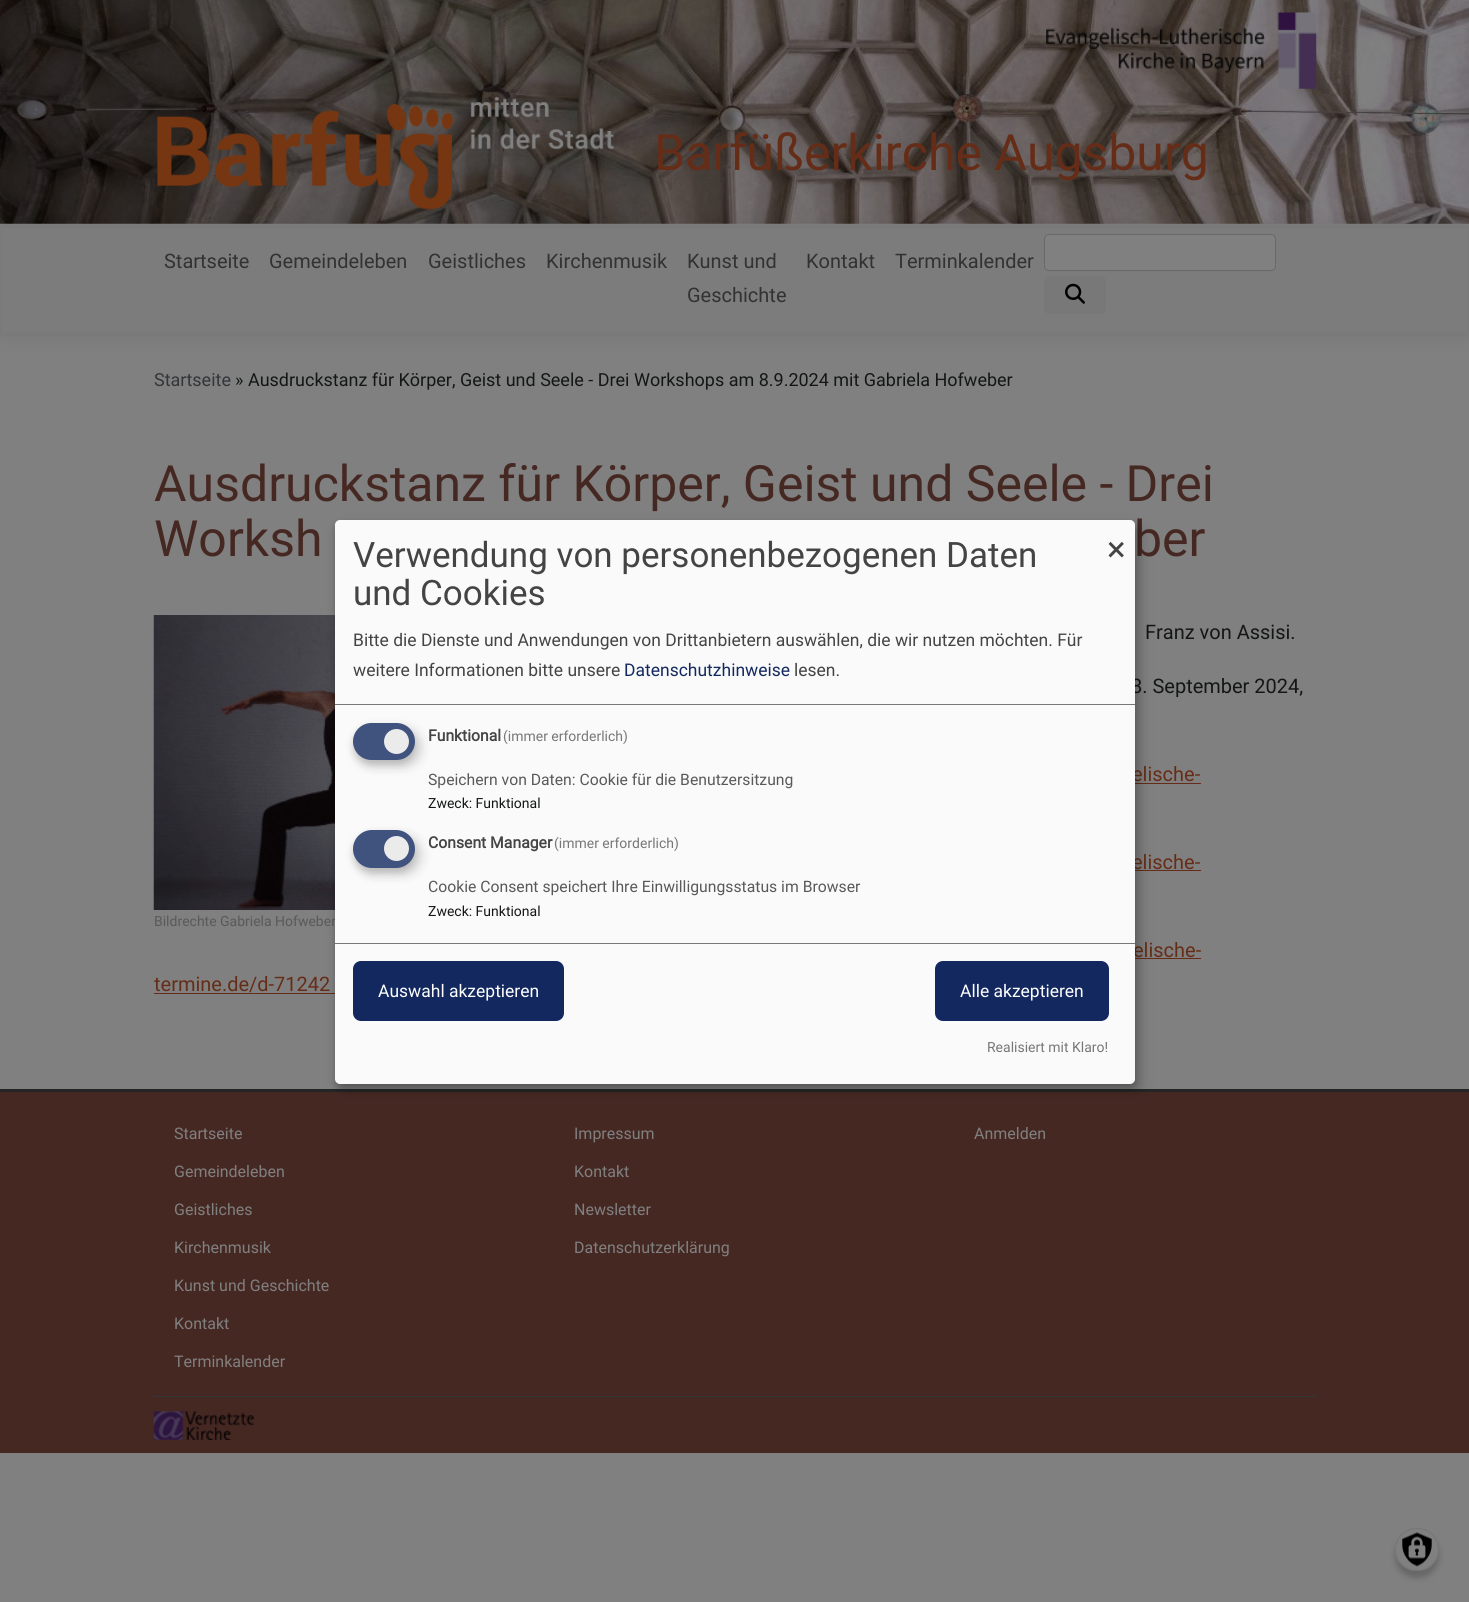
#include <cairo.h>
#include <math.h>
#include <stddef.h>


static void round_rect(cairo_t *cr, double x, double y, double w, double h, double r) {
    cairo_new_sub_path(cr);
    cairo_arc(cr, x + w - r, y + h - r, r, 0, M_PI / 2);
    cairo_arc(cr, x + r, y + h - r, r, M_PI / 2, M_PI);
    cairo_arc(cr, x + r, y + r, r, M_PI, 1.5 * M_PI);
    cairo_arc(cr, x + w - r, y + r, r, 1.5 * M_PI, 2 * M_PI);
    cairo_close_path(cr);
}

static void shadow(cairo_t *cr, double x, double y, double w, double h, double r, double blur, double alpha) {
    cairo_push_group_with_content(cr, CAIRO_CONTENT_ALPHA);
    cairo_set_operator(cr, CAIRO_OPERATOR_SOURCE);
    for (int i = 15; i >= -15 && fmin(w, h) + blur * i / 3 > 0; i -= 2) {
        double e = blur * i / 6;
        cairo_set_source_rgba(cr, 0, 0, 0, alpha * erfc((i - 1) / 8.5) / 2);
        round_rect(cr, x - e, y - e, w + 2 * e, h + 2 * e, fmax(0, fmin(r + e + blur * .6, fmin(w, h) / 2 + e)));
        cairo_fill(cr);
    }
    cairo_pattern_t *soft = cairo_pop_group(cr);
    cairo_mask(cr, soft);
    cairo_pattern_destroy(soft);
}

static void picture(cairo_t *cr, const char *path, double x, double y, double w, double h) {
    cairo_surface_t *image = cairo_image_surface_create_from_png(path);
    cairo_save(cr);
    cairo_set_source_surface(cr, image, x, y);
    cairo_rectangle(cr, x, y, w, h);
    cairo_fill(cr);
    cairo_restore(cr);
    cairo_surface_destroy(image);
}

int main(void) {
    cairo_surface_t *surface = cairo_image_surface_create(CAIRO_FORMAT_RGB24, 1469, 1602);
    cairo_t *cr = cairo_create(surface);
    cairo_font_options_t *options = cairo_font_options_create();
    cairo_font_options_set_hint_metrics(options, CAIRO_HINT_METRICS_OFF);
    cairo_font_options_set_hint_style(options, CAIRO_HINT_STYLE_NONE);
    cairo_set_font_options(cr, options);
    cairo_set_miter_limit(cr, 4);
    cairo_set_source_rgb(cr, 0.502, 0.502, 0.502);
    cairo_paint(cr);
    picture(cr, "img1.png", 0, 0, 1469, 224);
    picture(cr, "img2.png", 1046, 12, 271, 77);
    picture(cr, "img3.png", 157, 96, 457, 114);
    cairo_select_font_face(cr, "Roboto", CAIRO_FONT_SLANT_NORMAL, CAIRO_FONT_WEIGHT_NORMAL);
    cairo_set_font_size(cr, 50);
    cairo_set_source_rgb(cr, 0.396, 0.176, 0.09);
    cairo_move_to(cr, 654, 170);
    cairo_show_text(cr, "Barfüßerkirche Augsburg");
    cairo_set_source_rgb(cr, 0, 0, 0);
    shadow(cr, 0, 226, 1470, 109, 0, 9.5, 0.09);
    cairo_set_source_rgb(cr, 0.486, 0.486, 0.486);
    cairo_rectangle(cr, 2, 228, 1466, 105);
    cairo_fill(cr);
    cairo_set_font_size(cr, 20);
    cairo_set_source_rgb(cr, 0.196, 0.196, 0.196);
    cairo_move_to(cr, 164, 268);
    cairo_show_text(cr, "Startseite");
    cairo_move_to(cr, 269, 268);
    cairo_show_text(cr, "Gemeindeleben");
    cairo_move_to(cr, 428, 268);
    cairo_show_text(cr, "Geistliches");
    cairo_move_to(cr, 546, 268);
    cairo_show_text(cr, "Kirchenmusik");
    cairo_move_to(cr, 687, 268);
    cairo_show_text(cr, "Kunst und");
    cairo_move_to(cr, 687, 302);
    cairo_show_text(cr, "Geschichte");
    cairo_move_to(cr, 806, 268);
    cairo_show_text(cr, "Kontakt");
    cairo_move_to(cr, 895, 268);
    cairo_show_text(cr, "Terminkalender");
    cairo_set_source_rgb(cr, 0.502, 0.502, 0.502);
    round_rect(cr, 1044.5, 234.5, 231, 36, 4.5);
    cairo_fill_preserve(cr);
    cairo_set_source_rgb(cr, 0.412, 0.412, 0.412);
    cairo_set_line_width(cr, 1);
    cairo_stroke(cr);
    cairo_set_source_rgb(cr, 0.471, 0.471, 0.471);
    round_rect(cr, 1044, 276, 62, 38, 5);
    cairo_fill(cr);
    picture(cr, "img4.png", 1065, 283, 20, 21);
    cairo_set_font_size(cr, 18);
    cairo_set_source_rgb(cr, 0.196, 0.212, 0.224);
    cairo_move_to(cr, 154, 386);
    cairo_show_text(cr, "Startseite");
    cairo_set_source_rgb(cr, 0.082, 0.086, 0.086);
    cairo_move_to(cr, 235, 386);
    cairo_show_text(cr, "» Ausdruckstanz für Körper, Geist und Seele - Drei Workshops am 8.9.2024 mit Gabriela Hofweber");
    cairo_set_font_size(cr, 50);
    cairo_set_source_rgb(cr, 0.275, 0.157, 0.137);
    cairo_move_to(cr, 154, 501);
    cairo_show_text(cr, "Ausdruckstanz für Körper, Geist und Seele - Drei");
    cairo_move_to(cr, 154, 556);
    cairo_show_text(cr, "Worksh");
    cairo_move_to(cr, 1134, 556);
    cairo_show_text(cr, "ber");
    cairo_set_font_size(cr, 20);
    cairo_set_source_rgb(cr, 0.082, 0.086, 0.086);
    cairo_move_to(cr, 1145, 639);
    cairo_show_text(cr, "Franz von Assisi.");
    cairo_move_to(cr, 1131, 693);
    cairo_show_text(cr, "8. September 2024,");
    cairo_set_source_rgb(cr, 0.396, 0.176, 0.09);
    cairo_move_to(cr, 1132, 781);
    cairo_show_text(cr, "elische-");
    cairo_rectangle(cr, 1135, 783, 66, 1);
    cairo_fill(cr);
    cairo_move_to(cr, 1132, 869);
    cairo_show_text(cr, "elische-");
    cairo_rectangle(cr, 1135, 870, 66, 1);
    cairo_fill(cr);
    picture(cr, "img5.png", 153, 615, 182, 295);
    cairo_set_font_size(cr, 14);
    cairo_set_source_rgb(cr, 0.349, 0.349, 0.349);
    cairo_move_to(cr, 154, 926);
    cairo_show_text(cr, "Bildrechte Gabriela Hofweber");
    cairo_set_font_size(cr, 20);
    cairo_set_source_rgb(cr, 0.396, 0.176, 0.09);
    cairo_move_to(cr, 1133, 957);
    cairo_show_text(cr, "elische-");
    cairo_rectangle(cr, 1135, 958, 66, 1);
    cairo_fill(cr);
    cairo_move_to(cr, 154, 991);
    cairo_show_text(cr, "termine.de/d-71242");
    cairo_rectangle(cr, 154, 993, 181, 1);
    cairo_fill(cr);
    cairo_set_source_rgb(cr, 0.275, 0.157, 0.137);
    cairo_rectangle(cr, 0, 1092, 1469, 361);
    cairo_fill(cr);
    cairo_set_source_rgb(cr, 0.137, 0.145, 0.149);
    cairo_rectangle(cr, 0, 1089, 1469, 3);
    cairo_fill(cr);
    cairo_set_font_size(cr, 16);
    cairo_set_source_rgb(cr, 0.502, 0.502, 0.502);
    cairo_move_to(cr, 174, 1139);
    cairo_show_text(cr, "Startseite");
    cairo_move_to(cr, 174, 1177);
    cairo_show_text(cr, "Gemeindeleben");
    cairo_move_to(cr, 174, 1215);
    cairo_show_text(cr, "Geistliches");
    cairo_move_to(cr, 174, 1253);
    cairo_show_text(cr, "Kirchenmusik");
    cairo_move_to(cr, 174, 1291);
    cairo_show_text(cr, "Kunst und Geschichte");
    cairo_move_to(cr, 174, 1329);
    cairo_show_text(cr, "Kontakt");
    cairo_move_to(cr, 174, 1367);
    cairo_show_text(cr, "Terminkalender");
    cairo_move_to(cr, 574, 1139);
    cairo_show_text(cr, "Impressum");
    cairo_move_to(cr, 574, 1177);
    cairo_show_text(cr, "Kontakt");
    cairo_move_to(cr, 574, 1215);
    cairo_show_text(cr, "Newsletter");
    cairo_move_to(cr, 574, 1253);
    cairo_show_text(cr, "Datenschutzerklärung");
    cairo_move_to(cr, 974, 1139);
    cairo_show_text(cr, "Anmelden");
    cairo_set_source_rgb(cr, 0.196, 0.212, 0.224);
    cairo_rectangle(cr, 154, 1396, 1162, 1);
    cairo_fill(cr);
    picture(cr, "img6.png", 153, 1411, 101, 29);
    cairo_set_source_rgb(cr, 0, 0, 0);
    shadow(cr, 341, 526, 800, 564, 5, 6, 0.19);
    shadow(cr, 335, 525, 800, 564, 5, 4, 0.2);
    cairo_set_source_rgb(cr, 0.98, 0.98, 0.98);
    round_rect(cr, 335, 520, 800, 564, 5);
    cairo_fill(cr);
    cairo_set_source_rgb(cr, 0.467, 0.467, 0.467);
    cairo_rectangle(cr, 335, 704, 800, 1);
    cairo_fill(cr);
    cairo_set_font_size(cr, 35);
    cairo_set_source_rgb(cr, 0.267, 0.267, 0.267);
    cairo_move_to(cr, 353, 567);
    cairo_show_text(cr, "Verwendung von personenbezogenen Daten");
    cairo_move_to(cr, 353, 605);
    cairo_show_text(cr, "und Cookies");
    cairo_set_font_size(cr, 17.5);
    cairo_move_to(cr, 353, 646);
    cairo_show_text(cr, "Bitte die Dienste und Anwendungen von Drittanbietern auswählen, die wir nutzen möchten. Für");
    cairo_move_to(cr, 353, 676);
    cairo_show_text(cr, "weitere Informationen bitte unsere");
    cairo_set_source_rgb(cr, 0.071, 0.157, 0.373);
    cairo_move_to(cr, 624, 676);
    cairo_show_text(cr, "Datenschutzhinweise");
    cairo_set_source_rgb(cr, 0.267, 0.267, 0.267);
    cairo_move_to(cr, 794, 676);
    cairo_show_text(cr, "lesen.");
    cairo_set_font_size(cr, 35);
    cairo_move_to(cr, 1107, 561);
    cairo_show_text(cr, "×");
    cairo_set_source_rgb(cr, 0, 0, 0);
    shadow(cr, 359, 729, 62, 37, 18.5, 6, 0.15);
    cairo_set_source_rgb(cr, 0.196, 0.196, 0.196);
    shadow(cr, 353, 728, 62, 37, 18.5, 4, 0.2);
    cairo_set_source_rgb(cr, 0.251, 0.322, 0.494);
    round_rect(cr, 353, 723, 62, 37, 18.5);
    cairo_fill(cr);
    cairo_set_source_rgb(cr, 0.918, 0.918, 0.918);
    cairo_arc(cr, 396.5, 741.5, 12.5, 0, 2 * M_PI);
    cairo_fill(cr);
    cairo_select_font_face(cr, "Roboto", CAIRO_FONT_SLANT_NORMAL, CAIRO_FONT_WEIGHT_BOLD);
    cairo_set_font_size(cr, 15.75);
    cairo_set_source_rgb(cr, 0.267, 0.267, 0.267);
    cairo_move_to(cr, 428, 741);
    cairo_show_text(cr, "Funktional");
    cairo_select_font_face(cr, "Roboto", CAIRO_FONT_SLANT_NORMAL, CAIRO_FONT_WEIGHT_NORMAL);
    cairo_set_font_size(cr, 14);
    cairo_set_source_rgb(cr, 0.467, 0.467, 0.467);
    cairo_move_to(cr, 503, 741);
    cairo_show_text(cr, "(immer erforderlich)");
    cairo_set_font_size(cr, 15.75);
    cairo_set_source_rgb(cr, 0.349, 0.349, 0.349);
    cairo_move_to(cr, 428, 785);
    cairo_show_text(cr, "Speichern von Daten: Cookie für die Benutzersitzung");
    cairo_set_font_size(cr, 14);
    cairo_set_source_rgb(cr, 0.082, 0.086, 0.086);
    cairo_move_to(cr, 428, 808);
    cairo_show_text(cr, "Zweck: Funktional");
    cairo_set_source_rgb(cr, 0, 0, 0);
    shadow(cr, 359, 836, 62, 38, 19, 6, 0.15);
    cairo_set_source_rgb(cr, 0.196, 0.196, 0.196);
    shadow(cr, 353, 835, 62, 38, 19, 4, 0.2);
    cairo_set_source_rgb(cr, 0.251, 0.322, 0.494);
    round_rect(cr, 353, 830, 62, 38, 19);
    cairo_fill(cr);
    cairo_set_source_rgb(cr, 0.918, 0.918, 0.918);
    cairo_arc(cr, 396.5, 848.5, 12.5, 0, 2 * M_PI);
    cairo_fill(cr);
    cairo_select_font_face(cr, "Roboto", CAIRO_FONT_SLANT_NORMAL, CAIRO_FONT_WEIGHT_BOLD);
    cairo_set_font_size(cr, 15.75);
    cairo_set_source_rgb(cr, 0.267, 0.267, 0.267);
    cairo_move_to(cr, 428, 848);
    cairo_show_text(cr, "Consent Manager");
    cairo_select_font_face(cr, "Roboto", CAIRO_FONT_SLANT_NORMAL, CAIRO_FONT_WEIGHT_NORMAL);
    cairo_set_font_size(cr, 14);
    cairo_set_source_rgb(cr, 0.467, 0.467, 0.467);
    cairo_move_to(cr, 554, 848);
    cairo_show_text(cr, "(immer erforderlich)");
    cairo_set_font_size(cr, 15.75);
    cairo_set_source_rgb(cr, 0.349, 0.349, 0.349);
    cairo_move_to(cr, 428, 892);
    cairo_show_text(cr, "Cookie Consent speichert Ihre Einwilligungsstatus im Browser");
    cairo_set_font_size(cr, 14);
    cairo_set_source_rgb(cr, 0.082, 0.086, 0.086);
    cairo_move_to(cr, 428, 916);
    cairo_show_text(cr, "Zweck: Funktional");
    cairo_set_source_rgb(cr, 0.467, 0.467, 0.467);
    cairo_rectangle(cr, 335, 943, 800, 1);
    cairo_fill(cr);
    cairo_set_source_rgb(cr, 0.071, 0.157, 0.373);
    round_rect(cr, 355, 963, 207, 56, 6);
    cairo_fill_preserve(cr);
    cairo_set_line_width(cr, 4);
    cairo_stroke(cr);
    cairo_set_font_size(cr, 17.5);
    cairo_set_source_rgb(cr, 1, 1, 1);
    cairo_move_to(cr, 378, 997);
    cairo_show_text(cr, "Auswahl akzeptieren");
    cairo_set_source_rgb(cr, 0.071, 0.157, 0.373);
    round_rect(cr, 937, 963, 170, 56, 6);
    cairo_fill_preserve(cr);
    cairo_stroke(cr);
    cairo_set_source_rgb(cr, 1, 1, 1);
    cairo_move_to(cr, 960, 997);
    cairo_show_text(cr, "Alle akzeptieren");
    cairo_set_font_size(cr, 14);
    cairo_set_source_rgb(cr, 0.467, 0.467, 0.467);
    cairo_move_to(cr, 987, 1052);
    cairo_show_text(cr, "Realisiert mit Klaro!");
    cairo_set_source_rgb(cr, 0, 0, 0);
    shadow(cr, 1395, 1534, 44, 44, 22, 3, 0.2);
    cairo_set_source_rgb(cr, 0.502, 0.502, 0.502);
    round_rect(cr, 1395, 1528, 44, 43, 21.5);
    cairo_fill(cr);
    picture(cr, "img7.png", 1402, 1532, 30, 35);
    round_rect(cr, 1395.5, 1528.5, 43, 42, 21);
    cairo_set_source_rgb(cr, 0.459, 0.459, 0.459);
    cairo_set_line_width(cr, 1);
    cairo_stroke(cr);
    cairo_surface_write_to_png(surface, "page.png");
    cairo_font_options_destroy(options);
    cairo_destroy(cr);
    cairo_surface_destroy(surface);
    return 0;
}
